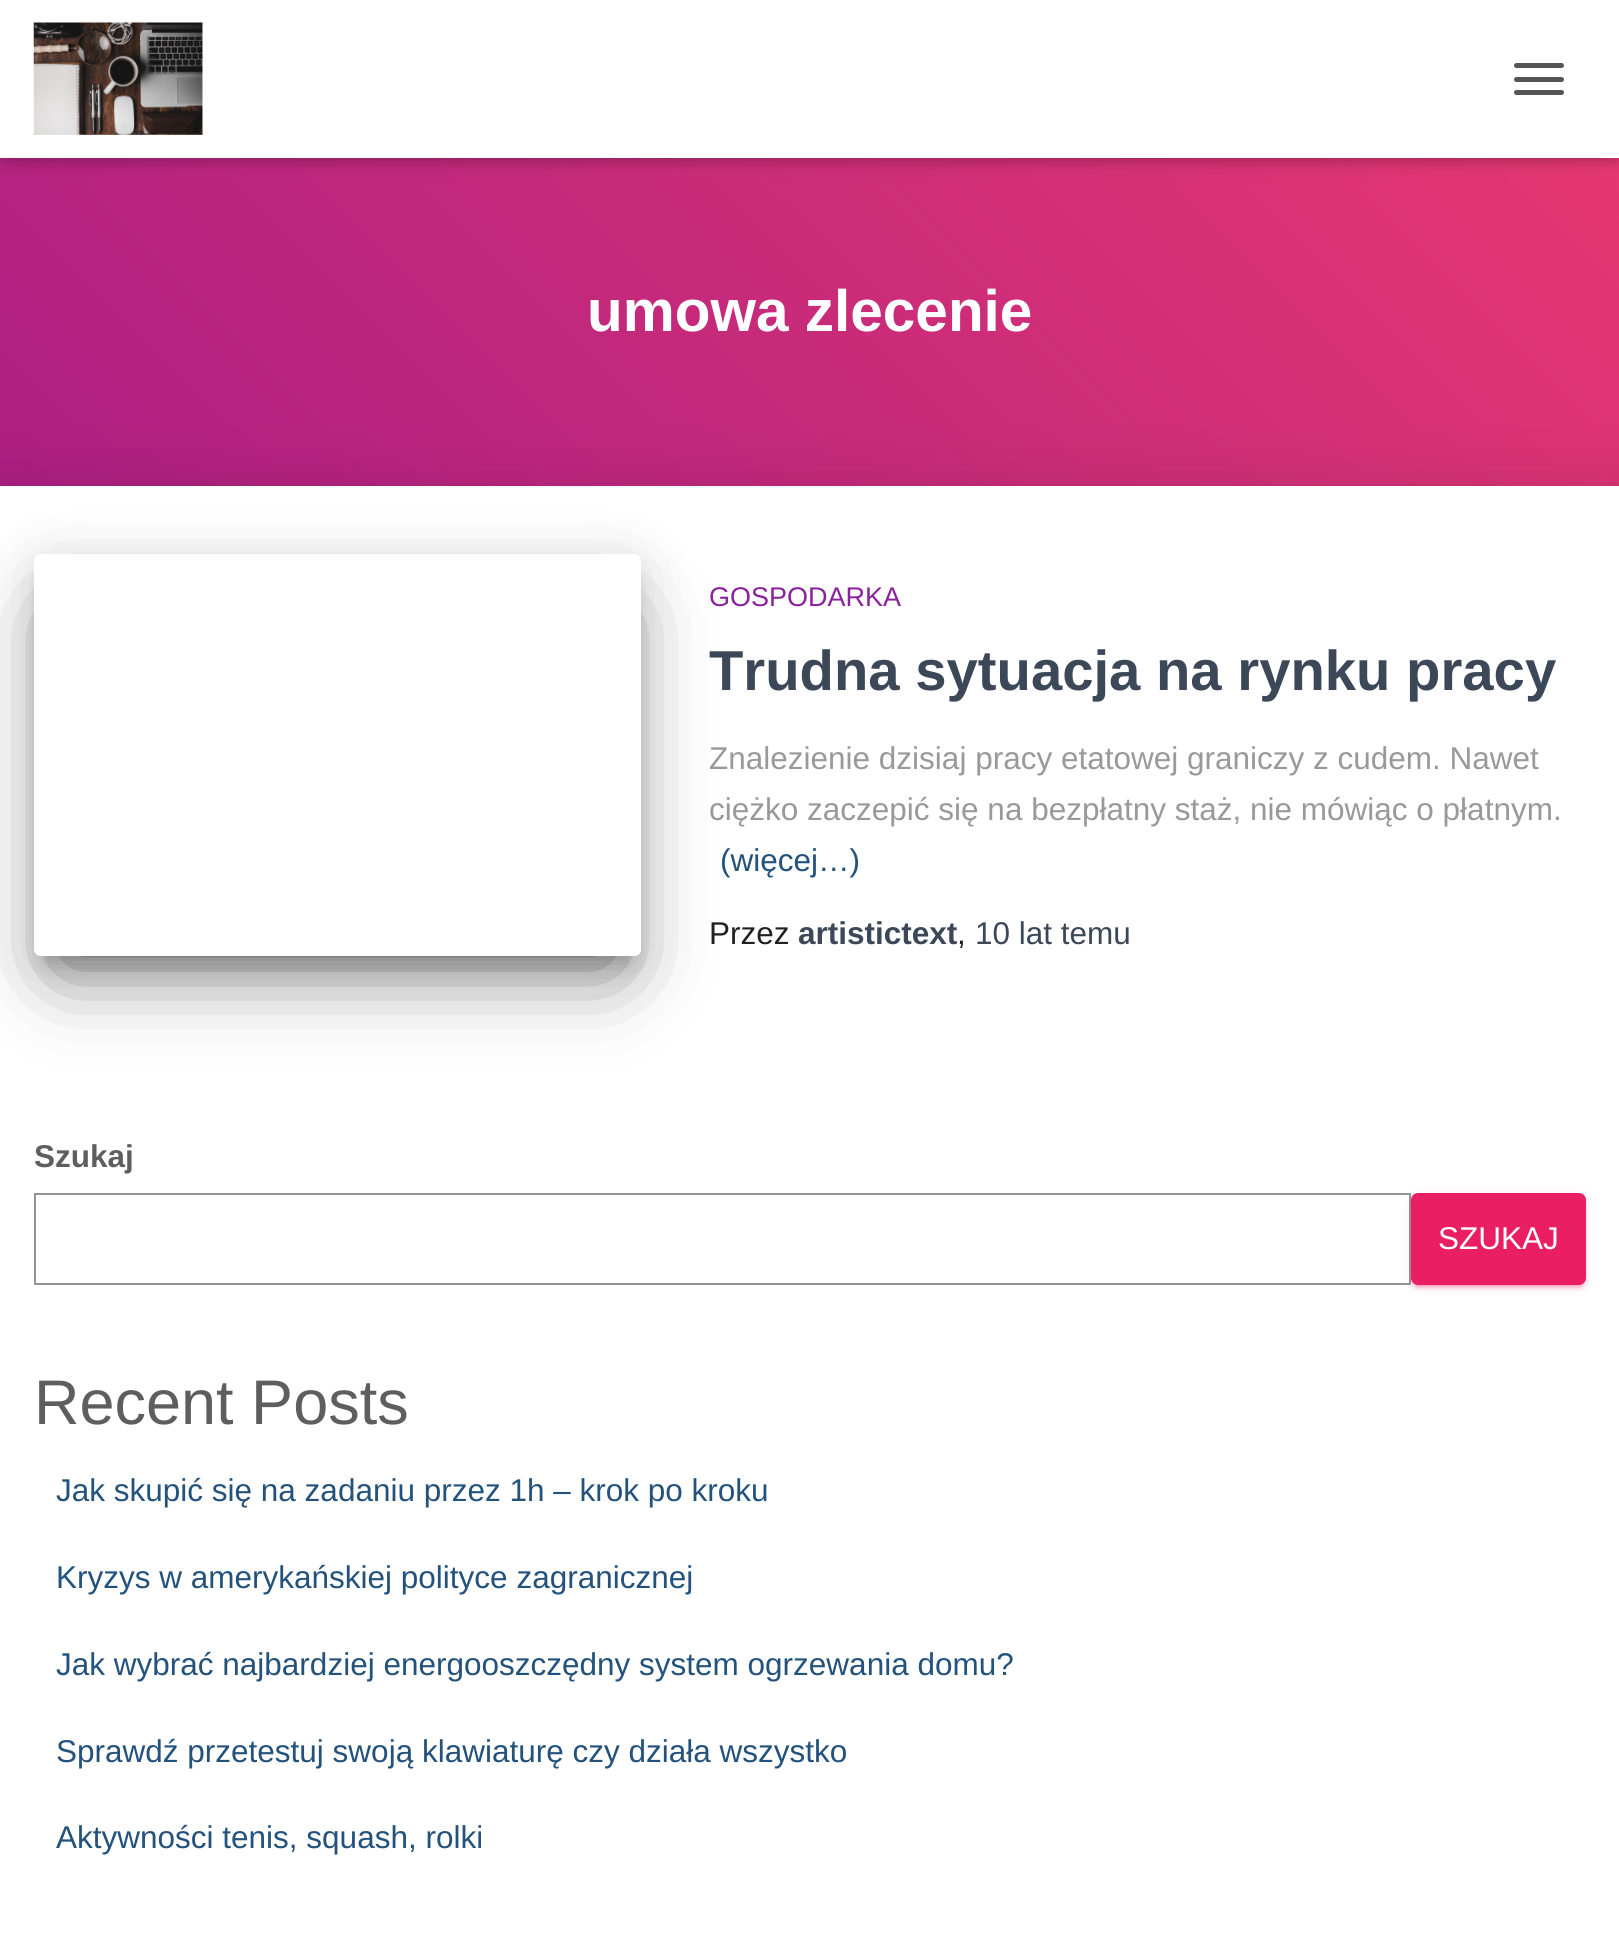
#include <cairo.h>
#include <math.h>
#include <stddef.h>


static void round_rect(cairo_t *cr, double x, double y, double w, double h, double r) {
    cairo_new_sub_path(cr);
    cairo_arc(cr, x + w - r, y + h - r, r, 0, M_PI / 2);
    cairo_arc(cr, x + r, y + h - r, r, M_PI / 2, M_PI);
    cairo_arc(cr, x + r, y + r, r, M_PI, 1.5 * M_PI);
    cairo_arc(cr, x + w - r, y + r, r, 1.5 * M_PI, 2 * M_PI);
    cairo_close_path(cr);
}

static void shadow(cairo_t *cr, double x, double y, double w, double h, double r, double blur, double alpha) {
    cairo_push_group_with_content(cr, CAIRO_CONTENT_ALPHA);
    cairo_set_operator(cr, CAIRO_OPERATOR_SOURCE);
    for (int i = 15; i >= -15 && fmin(w, h) + blur * i / 3 > 0; i -= 2) {
        double e = blur * i / 6;
        cairo_set_source_rgba(cr, 0, 0, 0, alpha * erfc((i - 1) / 8.5) / 2);
        round_rect(cr, x - e, y - e, w + 2 * e, h + 2 * e, fmax(0, fmin(r + e + blur * .6, fmin(w, h) / 2 + e)));
        cairo_fill(cr);
    }
    cairo_pattern_t *soft = cairo_pop_group(cr);
    cairo_mask(cr, soft);
    cairo_pattern_destroy(soft);
}

static void picture(cairo_t *cr, const char *path, double x, double y, double w, double h) {
    cairo_surface_t *image = cairo_image_surface_create_from_png(path);
    cairo_save(cr);
    cairo_set_source_surface(cr, image, x, y);
    cairo_rectangle(cr, x, y, w, h);
    cairo_fill(cr);
    cairo_restore(cr);
    cairo_surface_destroy(image);
}

int main(void) {
    cairo_surface_t *surface = cairo_image_surface_create(CAIRO_FORMAT_RGB24, 1619, 1933);
    cairo_t *cr = cairo_create(surface);
    cairo_font_options_t *options = cairo_font_options_create();
    cairo_font_options_set_hint_metrics(options, CAIRO_HINT_METRICS_OFF);
    cairo_font_options_set_hint_style(options, CAIRO_HINT_STYLE_NONE);
    cairo_set_font_options(cr, options);
    cairo_set_miter_limit(cr, 4);
    cairo_pattern_t *gradient;
    cairo_set_source_rgb(cr, 1, 1, 1);
    cairo_paint(cr);
    gradient = cairo_pattern_create_linear(250, 871, 1370, -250);
    cairo_pattern_add_color_stop_rgba(gradient, 0, 0.659, 0.114, 0.518, 1);
    cairo_pattern_add_color_stop_rgba(gradient, 1, 0.918, 0.224, 0.435, 1);
    cairo_set_source(cr, gradient);
    cairo_pattern_destroy(gradient);
    cairo_rectangle(cr, 0, 158, 1619, 328);
    cairo_fill(cr);
    cairo_set_source_rgb(cr, 0, 0, 0);
    shadow(cr, 5, 14, 1611, 148, 0, 5.5, 0.1);
    shadow(cr, 0, 2, 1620, 158, 0, 11, 0.12);
    shadow(cr, 14, 16, 1593, 130, 0, 11, 0.42);
    cairo_set_source_rgb(cr, 1, 1, 1);
    cairo_rectangle(cr, 0, 0, 1619, 158);
    cairo_fill(cr);
    picture(cr, "img1.png", 33, 22, 170, 113);
    cairo_set_source_rgb(cr, 0.333, 0.333, 0.333);
    round_rect(cr, 1514, 63, 50, 5, 2.5);
    cairo_fill(cr);
    round_rect(cr, 1514, 77, 50, 5, 2.5);
    cairo_fill(cr);
    round_rect(cr, 1514, 90, 50, 5, 2.5);
    cairo_fill(cr);
    cairo_select_font_face(cr, "Liberation Sans", CAIRO_FONT_SLANT_NORMAL, CAIRO_FONT_WEIGHT_BOLD);
    cairo_set_font_size(cr, 58.5);
    cairo_set_source_rgb(cr, 1, 1, 1);
    cairo_move_to(cr, 587, 331);
    cairo_show_text(cr, "umowa zlecenie");
    cairo_set_source_rgb(cr, 0, 0, 0);
    shadow(cr, -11, 488, 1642, 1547, 0, 34, 0.12);
    cairo_set_source_rgb(cr, 1, 1, 1);
    cairo_rectangle(cr, 0, 486, 1619, 1447);
    cairo_fill(cr);
    cairo_save(cr);
    cairo_set_fill_rule(cr, CAIRO_FILL_RULE_EVEN_ODD);
    cairo_new_path(cr);
    cairo_move_to(cr, 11, 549);
    cairo_line_to(cr, 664, 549);
    cairo_line_to(cr, 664, 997);
    cairo_line_to(cr, 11, 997);
    cairo_close_path(cr);
    cairo_move_to(cr, 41, 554);
    cairo_line_to(cr, 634, 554);
    cairo_curve_to(cr, 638, 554, 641, 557, 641, 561);
    cairo_line_to(cr, 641, 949);
    cairo_curve_to(cr, 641, 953, 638, 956, 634, 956);
    cairo_line_to(cr, 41, 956);
    cairo_curve_to(cr, 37, 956, 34, 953, 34, 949);
    cairo_line_to(cr, 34, 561);
    cairo_curve_to(cr, 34, 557, 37, 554, 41, 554);
    cairo_close_path(cr);
    cairo_clip(cr);
    cairo_set_source_rgb(cr, 0, 0, 0);
    shadow(cr, 45, 583, 585, 380, 0, 11, 0.2);
    cairo_restore(cr);
    cairo_save(cr);
    cairo_set_fill_rule(cr, CAIRO_FILL_RULE_EVEN_ODD);
    cairo_new_path(cr);
    cairo_move_to(cr, 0, 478);
    cairo_line_to(cr, 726, 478);
    cairo_line_to(cr, 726, 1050);
    cairo_line_to(cr, 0, 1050);
    cairo_close_path(cr);
    cairo_move_to(cr, 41, 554);
    cairo_line_to(cr, 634, 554);
    cairo_curve_to(cr, 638, 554, 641, 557, 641, 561);
    cairo_line_to(cr, 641, 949);
    cairo_curve_to(cr, 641, 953, 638, 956, 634, 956);
    cairo_line_to(cr, 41, 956);
    cairo_curve_to(cr, 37, 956, 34, 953, 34, 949);
    cairo_line_to(cr, 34, 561);
    cairo_curve_to(cr, 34, 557, 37, 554, 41, 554);
    cairo_close_path(cr);
    cairo_clip(cr);
    cairo_set_source_rgb(cr, 0, 0, 0);
    shadow(cr, 34, 563, 607, 402, 7, 28, 0.12);
    cairo_restore(cr);
    cairo_save(cr);
    cairo_set_fill_rule(cr, CAIRO_FILL_RULE_EVEN_ODD);
    cairo_new_path(cr);
    cairo_move_to(cr, 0, 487);
    cairo_line_to(cr, 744, 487);
    cairo_line_to(cr, 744, 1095);
    cairo_line_to(cr, 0, 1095);
    cairo_close_path(cr);
    cairo_move_to(cr, 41, 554);
    cairo_line_to(cr, 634, 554);
    cairo_curve_to(cr, 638, 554, 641, 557, 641, 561);
    cairo_line_to(cr, 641, 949);
    cairo_curve_to(cr, 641, 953, 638, 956, 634, 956);
    cairo_line_to(cr, 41, 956);
    cairo_curve_to(cr, 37, 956, 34, 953, 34, 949);
    cairo_line_to(cr, 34, 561);
    cairo_curve_to(cr, 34, 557, 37, 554, 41, 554);
    cairo_close_path(cr);
    cairo_clip(cr);
    cairo_set_source_rgb(cr, 0, 0, 0);
    shadow(cr, 61, 617, 553, 348, 0, 43, 0.56);
    cairo_restore(cr);
    cairo_select_font_face(cr, "Liberation Sans", CAIRO_FONT_SLANT_NORMAL, CAIRO_FONT_WEIGHT_NORMAL);
    cairo_set_font_size(cr, 27);
    cairo_set_source_rgb(cr, 0.537, 0.133, 0.608);
    cairo_move_to(cr, 709, 606);
    cairo_show_text(cr, "GOSPODARKA");
    cairo_select_font_face(cr, "Liberation Sans", CAIRO_FONT_SLANT_NORMAL, CAIRO_FONT_WEIGHT_BOLD);
    cairo_set_font_size(cr, 56.25);
    cairo_set_source_rgb(cr, 0.235, 0.282, 0.345);
    cairo_move_to(cr, 709, 690);
    cairo_show_text(cr, "Trudna sytuacja na rynku pracy");
    cairo_select_font_face(cr, "Liberation Sans", CAIRO_FONT_SLANT_NORMAL, CAIRO_FONT_WEIGHT_NORMAL);
    cairo_set_font_size(cr, 31.5);
    cairo_set_source_rgb(cr, 0.6, 0.6, 0.6);
    cairo_move_to(cr, 709, 769);
    cairo_show_text(cr, "Znalezienie dzisiaj pracy etatowej graniczy z cudem. Nawet");
    cairo_move_to(cr, 709, 820);
    cairo_show_text(cr, "ciężko zaczepić się na bezpłatny staż, nie mówiąc o płatnym.");
    cairo_set_source_rgb(cr, 0.137, 0.322, 0.486);
    cairo_move_to(cr, 720, 871);
    cairo_show_text(cr, "(więcej…)");
    cairo_set_source_rgb(cr, 0.129, 0.129, 0.129);
    cairo_move_to(cr, 709, 944);
    cairo_show_text(cr, "Przez");
    cairo_select_font_face(cr, "Liberation Sans", CAIRO_FONT_SLANT_NORMAL, CAIRO_FONT_WEIGHT_BOLD);
    cairo_set_source_rgb(cr, 0.235, 0.282, 0.345);
    cairo_move_to(cr, 798, 944);
    cairo_show_text(cr, "artistictext");
    cairo_select_font_face(cr, "Liberation Sans", CAIRO_FONT_SLANT_NORMAL, CAIRO_FONT_WEIGHT_NORMAL);
    cairo_set_source_rgb(cr, 0.129, 0.129, 0.129);
    cairo_move_to(cr, 957, 944);
    cairo_show_text(cr, ",");
    cairo_set_source_rgb(cr, 0.235, 0.282, 0.345);
    cairo_move_to(cr, 975, 944);
    cairo_show_text(cr, "10 lat temu");
    cairo_select_font_face(cr, "Liberation Sans", CAIRO_FONT_SLANT_NORMAL, CAIRO_FONT_WEIGHT_BOLD);
    cairo_set_source_rgb(cr, 0.369, 0.369, 0.369);
    cairo_move_to(cr, 34, 1167);
    cairo_show_text(cr, "Szukaj");
    cairo_rectangle(cr, 35, 1194, 1375, 90);
    cairo_set_source_rgb(cr, 0.58, 0.58, 0.58);
    cairo_stroke(cr);
    cairo_set_source_rgb(cr, 0.914, 0.118, 0.388);
    shadow(cr, 1411, 1195, 175, 92, 7, 5.5, 0.12);
    shadow(cr, 1415, 1204, 167, 83, 2, 1, 0.2);
    shadow(cr, 1411, 1197, 175, 92, 7, 2, 0.14);
    cairo_set_source_rgb(cr, 0.914, 0.118, 0.388);
    round_rect(cr, 1411, 1193, 175, 92, 7);
    cairo_fill(cr);
    cairo_select_font_face(cr, "Liberation Sans", CAIRO_FONT_SLANT_NORMAL, CAIRO_FONT_WEIGHT_NORMAL);
    cairo_set_source_rgb(cr, 1, 1, 1);
    cairo_move_to(cr, 1438, 1249);
    cairo_show_text(cr, "SZUKAJ");
    cairo_set_font_size(cr, 63);
    cairo_set_source_rgb(cr, 0.369, 0.369, 0.369);
    cairo_move_to(cr, 34, 1424);
    cairo_show_text(cr, "Recent Posts");
    cairo_set_font_size(cr, 31.5);
    cairo_set_source_rgb(cr, 0.137, 0.322, 0.486);
    cairo_move_to(cr, 56, 1501);
    cairo_show_text(cr, "Jak skupić się na zadaniu przez 1h – krok po kroku");
    cairo_move_to(cr, 56, 1588);
    cairo_show_text(cr, "Kryzys w amerykańskiej polityce zagranicznej");
    cairo_move_to(cr, 56, 1675);
    cairo_show_text(cr, "Jak wybrać najbardziej energooszczędny system ogrzewania domu?");
    cairo_move_to(cr, 56, 1762);
    cairo_show_text(cr, "Sprawdź przetestuj swoją klawiaturę czy działa wszystko");
    cairo_move_to(cr, 56, 1848);
    cairo_show_text(cr, "Aktywności tenis, squash, rolki");
    cairo_surface_write_to_png(surface, "page.png");
    cairo_font_options_destroy(options);
    cairo_destroy(cr);
    cairo_surface_destroy(surface);
    return 0;
}
